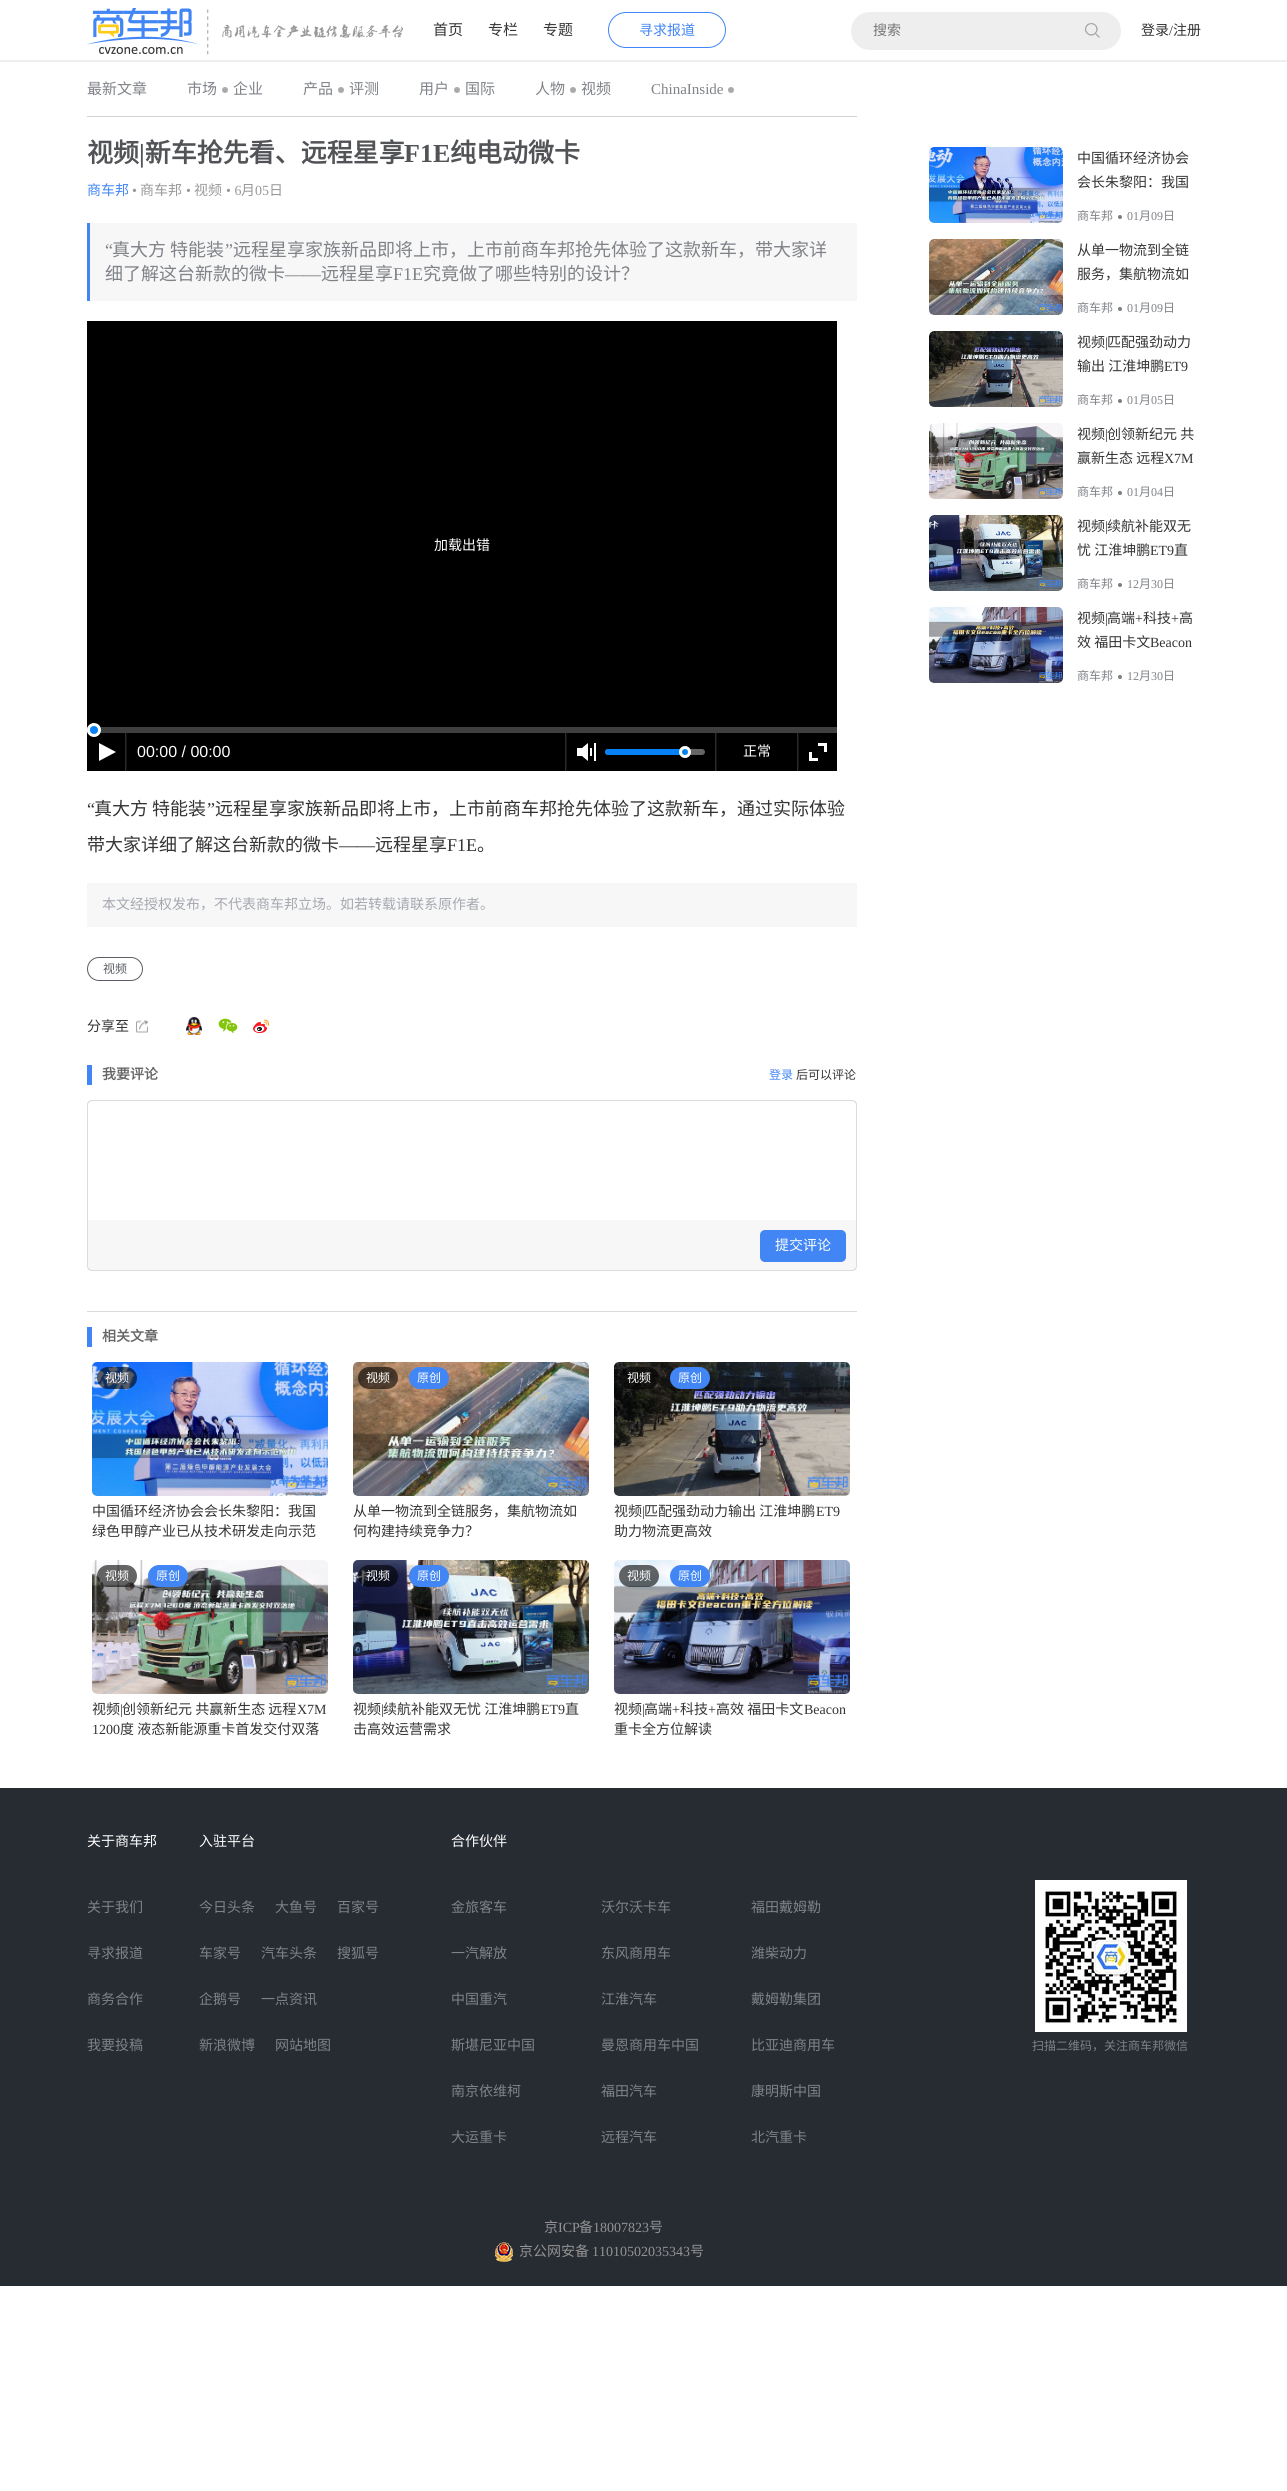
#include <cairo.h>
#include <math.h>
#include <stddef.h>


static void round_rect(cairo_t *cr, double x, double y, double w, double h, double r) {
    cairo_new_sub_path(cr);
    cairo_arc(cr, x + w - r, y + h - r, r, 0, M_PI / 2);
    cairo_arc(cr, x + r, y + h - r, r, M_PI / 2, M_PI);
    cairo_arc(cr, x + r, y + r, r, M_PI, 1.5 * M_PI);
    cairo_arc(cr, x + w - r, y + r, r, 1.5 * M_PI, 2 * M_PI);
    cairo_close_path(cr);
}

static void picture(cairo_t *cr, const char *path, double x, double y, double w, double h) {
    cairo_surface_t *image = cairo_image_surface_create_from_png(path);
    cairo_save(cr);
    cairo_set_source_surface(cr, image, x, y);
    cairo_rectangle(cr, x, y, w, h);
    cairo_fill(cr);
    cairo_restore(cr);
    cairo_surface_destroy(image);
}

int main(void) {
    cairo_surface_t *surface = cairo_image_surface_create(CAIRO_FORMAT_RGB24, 1287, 2491);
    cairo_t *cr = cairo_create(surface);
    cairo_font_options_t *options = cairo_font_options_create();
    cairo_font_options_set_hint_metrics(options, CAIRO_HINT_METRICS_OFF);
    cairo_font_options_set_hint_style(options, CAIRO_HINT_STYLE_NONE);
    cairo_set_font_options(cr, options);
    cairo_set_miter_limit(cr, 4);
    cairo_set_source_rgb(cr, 1, 1, 1);
    cairo_paint(cr);
    cairo_set_source_rgb(cr, 0.933, 0.933, 0.933);
    cairo_rectangle(cr, 0, 60, 1287, 2);
    cairo_fill(cr);
    picture(cr, "img1.png", 87, 8, 316, 47);
    cairo_select_font_face(cr, "Noto Sans CJK SC", CAIRO_FONT_SLANT_NORMAL, CAIRO_FONT_WEIGHT_NORMAL);
    cairo_set_font_size(cr, 15);
    cairo_set_source_rgb(cr, 0.204, 0.204, 0.204);
    cairo_move_to(cr, 433, 35);
    cairo_show_text(cr, "首页");
    cairo_move_to(cr, 488, 35);
    cairo_show_text(cr, "专栏");
    cairo_move_to(cr, 543, 35);
    cairo_show_text(cr, "专题");
    round_rect(cr, 608.5, 12.5, 117, 35, 17.5);
    cairo_set_source_rgb(cr, 0.255, 0.525, 0.957);
    cairo_set_line_width(cr, 1);
    cairo_stroke(cr);
    cairo_set_font_size(cr, 14);
    cairo_move_to(cr, 639, 35);
    cairo_show_text(cr, "寻求报道");
    cairo_set_source_rgb(cr, 0.933, 0.933, 0.933);
    round_rect(cr, 851, 12, 270, 38, 19);
    cairo_fill(cr);
    cairo_set_source_rgb(cr, 0.459, 0.459, 0.459);
    cairo_move_to(cr, 873, 35);
    cairo_show_text(cr, "搜索");
    picture(cr, "img2.png", 1085, 23, 15, 15);
    cairo_set_source_rgb(cr, 0.204, 0.204, 0.204);
    cairo_move_to(cr, 1141, 35);
    cairo_show_text(cr, "登录");
    cairo_select_font_face(cr, "Liberation Serif", CAIRO_FONT_SLANT_NORMAL, CAIRO_FONT_WEIGHT_NORMAL);
    cairo_move_to(cr, 1169, 35);
    cairo_show_text(cr, "/");
    cairo_select_font_face(cr, "Noto Sans CJK SC", CAIRO_FONT_SLANT_NORMAL, CAIRO_FONT_WEIGHT_NORMAL);
    cairo_move_to(cr, 1173, 35);
    cairo_show_text(cr, "注册");
    cairo_set_source_rgb(cr, 0.824, 0.824, 0.824);
    cairo_rectangle(cr, 87, 116, 770, 1);
    cairo_fill(cr);
    cairo_set_font_size(cr, 15);
    cairo_set_source_rgb(cr, 0.498, 0.51, 0.533);
    cairo_move_to(cr, 87, 94);
    cairo_show_text(cr, "最新文章");
    cairo_move_to(cr, 187, 94);
    cairo_show_text(cr, "市场");
    cairo_set_source_rgb(cr, 0.667, 0.667, 0.667);
    cairo_new_path(cr);
    cairo_arc(cr, 225, 90, 3, 0, 2 * M_PI);
    cairo_fill(cr);
    cairo_set_source_rgb(cr, 0.498, 0.51, 0.533);
    cairo_move_to(cr, 233, 94);
    cairo_show_text(cr, "企业");
    cairo_move_to(cr, 303, 94);
    cairo_show_text(cr, "产品");
    cairo_set_source_rgb(cr, 0.667, 0.667, 0.667);
    cairo_new_path(cr);
    cairo_arc(cr, 341, 90, 3, 0, 2 * M_PI);
    cairo_fill(cr);
    cairo_set_source_rgb(cr, 0.498, 0.51, 0.533);
    cairo_move_to(cr, 349, 94);
    cairo_show_text(cr, "评测");
    cairo_move_to(cr, 419, 94);
    cairo_show_text(cr, "用户");
    cairo_set_source_rgb(cr, 0.667, 0.667, 0.667);
    cairo_new_path(cr);
    cairo_arc(cr, 457, 90, 3, 0, 2 * M_PI);
    cairo_fill(cr);
    cairo_set_source_rgb(cr, 0.498, 0.51, 0.533);
    cairo_move_to(cr, 465, 94);
    cairo_show_text(cr, "国际");
    cairo_move_to(cr, 535, 94);
    cairo_show_text(cr, "人物");
    cairo_set_source_rgb(cr, 0.667, 0.667, 0.667);
    cairo_new_path(cr);
    cairo_arc(cr, 573, 90, 3, 0, 2 * M_PI);
    cairo_fill(cr);
    cairo_set_source_rgb(cr, 0.498, 0.51, 0.533);
    cairo_move_to(cr, 581, 94);
    cairo_show_text(cr, "视频");
    cairo_select_font_face(cr, "Liberation Serif", CAIRO_FONT_SLANT_NORMAL, CAIRO_FONT_WEIGHT_NORMAL);
    cairo_move_to(cr, 651, 94);
    cairo_show_text(cr, "ChinaInside");
    cairo_set_source_rgb(cr, 0.667, 0.667, 0.667);
    cairo_new_path(cr);
    cairo_arc(cr, 731, 90, 3, 0, 2 * M_PI);
    cairo_fill(cr);
    cairo_select_font_face(cr, "Noto Sans CJK SC", CAIRO_FONT_SLANT_NORMAL, CAIRO_FONT_WEIGHT_BOLD);
    cairo_set_font_size(cr, 26);
    cairo_set_source_rgb(cr, 0.318, 0.325, 0.337);
    cairo_move_to(cr, 87, 162);
    cairo_show_text(cr, "视频 新车抢先看、远程星享");
    cairo_move_to(cr, 450, 162);
    cairo_show_text(cr, "纯电动微卡");
    cairo_select_font_face(cr, "Liberation Serif", CAIRO_FONT_SLANT_NORMAL, CAIRO_FONT_WEIGHT_BOLD);
    cairo_move_to(cr, 139, 162);
    cairo_show_text(cr, "|");
    cairo_move_to(cr, 404, 162);
    cairo_show_text(cr, "F1E");
    cairo_select_font_face(cr, "Noto Sans CJK SC", CAIRO_FONT_SLANT_NORMAL, CAIRO_FONT_WEIGHT_NORMAL);
    cairo_set_font_size(cr, 14);
    cairo_set_source_rgb(cr, 0.255, 0.525, 0.957);
    cairo_move_to(cr, 87, 195);
    cairo_show_text(cr, "商车邦");
    cairo_select_font_face(cr, "Liberation Serif", CAIRO_FONT_SLANT_NORMAL, CAIRO_FONT_WEIGHT_NORMAL);
    cairo_set_source_rgb(cr, 0.6, 0.6, 0.6);
    cairo_move_to(cr, 132, 195);
    cairo_show_text(cr, "•");
    cairo_select_font_face(cr, "Noto Sans CJK SC", CAIRO_FONT_SLANT_NORMAL, CAIRO_FONT_WEIGHT_NORMAL);
    cairo_move_to(cr, 140, 195);
    cairo_show_text(cr, "商车邦");
    cairo_select_font_face(cr, "Liberation Serif", CAIRO_FONT_SLANT_NORMAL, CAIRO_FONT_WEIGHT_NORMAL);
    cairo_move_to(cr, 186, 195);
    cairo_show_text(cr, "•");
    cairo_select_font_face(cr, "Noto Sans CJK SC", CAIRO_FONT_SLANT_NORMAL, CAIRO_FONT_WEIGHT_NORMAL);
    cairo_move_to(cr, 194, 195);
    cairo_show_text(cr, "视频");
    cairo_select_font_face(cr, "Liberation Serif", CAIRO_FONT_SLANT_NORMAL, CAIRO_FONT_WEIGHT_NORMAL);
    cairo_move_to(cr, 226, 195);
    cairo_show_text(cr, "• 6");
    cairo_select_font_face(cr, "Noto Sans CJK SC", CAIRO_FONT_SLANT_NORMAL, CAIRO_FONT_WEIGHT_NORMAL);
    cairo_move_to(cr, 241, 195);
    cairo_show_text(cr, "月");
    cairo_select_font_face(cr, "Liberation Serif", CAIRO_FONT_SLANT_NORMAL, CAIRO_FONT_WEIGHT_NORMAL);
    cairo_move_to(cr, 255, 195);
    cairo_show_text(cr, "05");
    cairo_select_font_face(cr, "Noto Sans CJK SC", CAIRO_FONT_SLANT_NORMAL, CAIRO_FONT_WEIGHT_NORMAL);
    cairo_move_to(cr, 269, 195);
    cairo_show_text(cr, "日");
    cairo_set_source_rgb(cr, 0.965, 0.965, 0.965);
    cairo_rectangle(cr, 90, 223, 767, 78);
    cairo_fill(cr);
    cairo_set_source_rgb(cr, 0.255, 0.525, 0.957);
    cairo_rectangle(cr, 87, 223, 3, 78);
    cairo_fill(cr);
    cairo_select_font_face(cr, "Liberation Serif", CAIRO_FONT_SLANT_NORMAL, CAIRO_FONT_WEIGHT_NORMAL);
    cairo_set_font_size(cr, 18);
    cairo_set_source_rgb(cr, 0.498, 0.51, 0.533);
    cairo_move_to(cr, 105, 256);
    cairo_show_text(cr, "“");
    cairo_select_font_face(cr, "Noto Sans CJK SC", CAIRO_FONT_SLANT_NORMAL, CAIRO_FONT_WEIGHT_NORMAL);
    cairo_move_to(cr, 112, 256);
    cairo_show_text(cr, "真大方 特能装");
    cairo_select_font_face(cr, "Liberation Serif", CAIRO_FONT_SLANT_NORMAL, CAIRO_FONT_WEIGHT_NORMAL);
    cairo_move_to(cr, 225, 256);
    cairo_show_text(cr, "”");
    cairo_select_font_face(cr, "Noto Sans CJK SC", CAIRO_FONT_SLANT_NORMAL, CAIRO_FONT_WEIGHT_NORMAL);
    cairo_move_to(cr, 233, 256);
    cairo_show_text(cr, "远程星享家族新品即将上市，上市前商车邦抢先体验了这款新车，带大家详");
    cairo_move_to(cr, 105, 280);
    cairo_show_text(cr, "细了解这台新款的微卡");
    cairo_select_font_face(cr, "Liberation Serif", CAIRO_FONT_SLANT_NORMAL, CAIRO_FONT_WEIGHT_NORMAL);
    cairo_move_to(cr, 285, 280);
    cairo_show_text(cr, "——");
    cairo_select_font_face(cr, "Noto Sans CJK SC", CAIRO_FONT_SLANT_NORMAL, CAIRO_FONT_WEIGHT_NORMAL);
    cairo_move_to(cr, 321, 280);
    cairo_show_text(cr, "远程星享");
    cairo_select_font_face(cr, "Liberation Serif", CAIRO_FONT_SLANT_NORMAL, CAIRO_FONT_WEIGHT_NORMAL);
    cairo_move_to(cr, 393, 280);
    cairo_show_text(cr, "F1E");
    cairo_select_font_face(cr, "Noto Sans CJK SC", CAIRO_FONT_SLANT_NORMAL, CAIRO_FONT_WEIGHT_NORMAL);
    cairo_move_to(cr, 423, 280);
    cairo_show_text(cr, "究竟做了哪些特别的设计？");
    cairo_set_source_rgb(cr, 0, 0, 0);
    cairo_rectangle(cr, 87, 321, 750, 450);
    cairo_fill(cr);
    cairo_set_font_size(cr, 14);
    cairo_set_source_rgb(cr, 1, 1, 1);
    cairo_move_to(cr, 434, 550);
    cairo_show_text(cr, "加载出错");
    cairo_set_source_rgb(cr, 0.247, 0.247, 0.247);
    cairo_rectangle(cr, 100, 727, 737, 6);
    cairo_fill(cr);
    cairo_set_source_rgb(cr, 0.435, 0.435, 0.435);
    cairo_rectangle(cr, 87, 727, 1, 6);
    cairo_fill(cr);
    cairo_set_source_rgb(cr, 1, 1, 1);
    cairo_arc(cr, 94, 730, 7, 0, 2 * M_PI);
    cairo_fill(cr);
    cairo_set_source_rgb(cr, 0.027, 0.51, 0.961);
    cairo_arc(cr, 94, 730, 4, 0, 2 * M_PI);
    cairo_fill(cr);
    picture(cr, "img3.png", 99, 743, 17, 18);
    cairo_set_source_rgb(cr, 0.075, 0.075, 0.075);
    cairo_rectangle(cr, 126, 733, 1, 38);
    cairo_fill(cr);
    cairo_set_source_rgb(cr, 0.169, 0.169, 0.169);
    cairo_rectangle(cr, 125, 733, 1, 38);
    cairo_fill(cr);
    cairo_select_font_face(cr, "Liberation Sans", CAIRO_FONT_SLANT_NORMAL, CAIRO_FONT_WEIGHT_NORMAL);
    cairo_set_font_size(cr, 16);
    cairo_set_source_rgb(cr, 1, 1, 1);
    cairo_move_to(cr, 137, 757);
    cairo_show_text(cr, "00:00 / 00:00");
    cairo_set_source_rgb(cr, 0.075, 0.075, 0.075);
    cairo_rectangle(cr, 566, 733, 1, 38);
    cairo_fill(cr);
    cairo_set_source_rgb(cr, 0.169, 0.169, 0.169);
    cairo_rectangle(cr, 565, 733, 1, 38);
    cairo_fill(cr);
    picture(cr, "img4.png", 577, 743, 19, 18);
    cairo_set_source_rgb(cr, 0.4, 0.4, 0.4);
    round_rect(cr, 605, 749, 100, 6, 3);
    cairo_fill(cr);
    cairo_set_source_rgb(cr, 0.027, 0.51, 0.961);
    round_rect(cr, 605, 749, 80, 6, 3);
    cairo_fill(cr);
    cairo_set_source_rgb(cr, 1, 1, 1);
    cairo_arc(cr, 685, 752, 6, 0, 2 * M_PI);
    cairo_fill(cr);
    cairo_set_source_rgb(cr, 0.027, 0.51, 0.961);
    cairo_arc(cr, 685, 752, 3, 0, 2 * M_PI);
    cairo_fill(cr);
    cairo_set_source_rgb(cr, 0.075, 0.075, 0.075);
    cairo_rectangle(cr, 716, 733, 1, 38);
    cairo_fill(cr);
    cairo_set_source_rgb(cr, 0.169, 0.169, 0.169);
    cairo_rectangle(cr, 715, 733, 1, 38);
    cairo_fill(cr);
    cairo_select_font_face(cr, "Noto Sans CJK SC", CAIRO_FONT_SLANT_NORMAL, CAIRO_FONT_WEIGHT_NORMAL);
    cairo_set_font_size(cr, 14);
    cairo_set_source_rgb(cr, 1, 1, 1);
    cairo_move_to(cr, 743, 756);
    cairo_show_text(cr, "正常");
    cairo_set_source_rgb(cr, 0.075, 0.075, 0.075);
    cairo_rectangle(cr, 798, 733, 1, 38);
    cairo_fill(cr);
    cairo_set_source_rgb(cr, 0.169, 0.169, 0.169);
    cairo_rectangle(cr, 797, 733, 1, 38);
    cairo_fill(cr);
    picture(cr, "img5.png", 809, 743, 18, 18);
    cairo_select_font_face(cr, "Liberation Serif", CAIRO_FONT_SLANT_NORMAL, CAIRO_FONT_WEIGHT_NORMAL);
    cairo_set_font_size(cr, 18);
    cairo_set_source_rgb(cr, 0.204, 0.204, 0.204);
    cairo_move_to(cr, 87, 815);
    cairo_show_text(cr, "“");
    cairo_select_font_face(cr, "Noto Sans CJK SC", CAIRO_FONT_SLANT_NORMAL, CAIRO_FONT_WEIGHT_NORMAL);
    cairo_move_to(cr, 94, 815);
    cairo_show_text(cr, "真大方 特能装");
    cairo_select_font_face(cr, "Liberation Serif", CAIRO_FONT_SLANT_NORMAL, CAIRO_FONT_WEIGHT_NORMAL);
    cairo_move_to(cr, 207, 815);
    cairo_show_text(cr, "”");
    cairo_select_font_face(cr, "Noto Sans CJK SC", CAIRO_FONT_SLANT_NORMAL, CAIRO_FONT_WEIGHT_NORMAL);
    cairo_move_to(cr, 215, 815);
    cairo_show_text(cr, "远程星享家族新品即将上市，上市前商车邦抢先体验了这款新车，通过实际体验");
    cairo_move_to(cr, 87, 851);
    cairo_show_text(cr, "带大家详细了解这台新款的微卡");
    cairo_select_font_face(cr, "Liberation Serif", CAIRO_FONT_SLANT_NORMAL, CAIRO_FONT_WEIGHT_NORMAL);
    cairo_move_to(cr, 339, 851);
    cairo_show_text(cr, "——");
    cairo_select_font_face(cr, "Noto Sans CJK SC", CAIRO_FONT_SLANT_NORMAL, CAIRO_FONT_WEIGHT_NORMAL);
    cairo_move_to(cr, 375, 851);
    cairo_show_text(cr, "远程星享");
    cairo_select_font_face(cr, "Liberation Serif", CAIRO_FONT_SLANT_NORMAL, CAIRO_FONT_WEIGHT_NORMAL);
    cairo_move_to(cr, 447, 851);
    cairo_show_text(cr, "F1E");
    cairo_select_font_face(cr, "Noto Sans CJK SC", CAIRO_FONT_SLANT_NORMAL, CAIRO_FONT_WEIGHT_NORMAL);
    cairo_move_to(cr, 477, 851);
    cairo_show_text(cr, "。");
    cairo_set_source_rgb(cr, 0.965, 0.965, 0.965);
    cairo_rectangle(cr, 87, 883, 770, 44);
    cairo_fill(cr);
    cairo_set_font_size(cr, 14);
    cairo_set_source_rgb(cr, 0.643, 0.659, 0.69);
    cairo_move_to(cr, 102, 909);
    cairo_show_text(cr, "本文经授权发布，不代表商车邦立场。如若转载请联系原作者。");
    round_rect(cr, 87.5, 957.5, 55, 23, 11.5);
    cairo_set_source_rgb(cr, 0.353, 0.365, 0.388);
    cairo_stroke(cr);
    cairo_set_font_size(cr, 12);
    cairo_move_to(cr, 103, 973);
    cairo_show_text(cr, "视频");
    cairo_set_font_size(cr, 14);
    cairo_set_source_rgb(cr, 0.204, 0.204, 0.204);
    cairo_move_to(cr, 87, 1031);
    cairo_show_text(cr, "分享至");
    picture(cr, "img6.png", 136, 1020, 12, 13);
    picture(cr, "img7.png", 186, 1017, 16, 18);
    picture(cr, "img8.png", 218, 1018, 20, 16);
    picture(cr, "img9.png", 253, 1019, 17, 14);
    cairo_set_source_rgb(cr, 0.255, 0.525, 0.957);
    cairo_rectangle(cr, 87, 1065, 5, 20);
    cairo_fill(cr);
    cairo_select_font_face(cr, "Noto Sans CJK SC", CAIRO_FONT_SLANT_NORMAL, CAIRO_FONT_WEIGHT_BOLD);
    cairo_set_source_rgb(cr, 0.4, 0.4, 0.4);
    cairo_move_to(cr, 102, 1079);
    cairo_show_text(cr, "我要评论");
    cairo_select_font_face(cr, "Noto Sans CJK SC", CAIRO_FONT_SLANT_NORMAL, CAIRO_FONT_WEIGHT_NORMAL);
    cairo_set_font_size(cr, 12);
    cairo_set_source_rgb(cr, 0.255, 0.525, 0.957);
    cairo_move_to(cr, 769, 1079);
    cairo_show_text(cr, "登录");
    cairo_set_source_rgb(cr, 0.204, 0.204, 0.204);
    cairo_move_to(cr, 796, 1079);
    cairo_show_text(cr, "后可以评论");
    cairo_set_source_rgb(cr, 0.863, 0.863, 0.863);
    cairo_set_fill_rule(cr, CAIRO_FILL_RULE_EVEN_ODD);
    cairo_new_path(cr);
    cairo_move_to(cr, 92, 1100);
    cairo_line_to(cr, 852, 1100);
    cairo_curve_to(cr, 855, 1100, 857, 1102, 857, 1105);
    cairo_line_to(cr, 857, 1220);
    cairo_line_to(cr, 87, 1220);
    cairo_line_to(cr, 87, 1105);
    cairo_curve_to(cr, 87, 1102, 89, 1100, 92, 1100);
    cairo_close_path(cr);
    cairo_move_to(cr, 92, 1101);
    cairo_line_to(cr, 852, 1101);
    cairo_curve_to(cr, 854, 1101, 856, 1103, 856, 1105);
    cairo_line_to(cr, 856, 1220);
    cairo_line_to(cr, 88, 1220);
    cairo_line_to(cr, 88, 1105);
    cairo_curve_to(cr, 88, 1103, 90, 1101, 92, 1101);
    cairo_close_path(cr);
    cairo_fill(cr);
    cairo_set_source_rgb(cr, 0.965, 0.965, 0.965);
    cairo_new_path(cr);
    cairo_move_to(cr, 87, 1220);
    cairo_line_to(cr, 857, 1220);
    cairo_line_to(cr, 857, 1266);
    cairo_curve_to(cr, 857, 1269, 855, 1271, 852, 1271);
    cairo_line_to(cr, 92, 1271);
    cairo_curve_to(cr, 89, 1271, 87, 1269, 87, 1266);
    cairo_close_path(cr);
    cairo_fill(cr);
    cairo_set_source_rgb(cr, 0.863, 0.863, 0.863);
    cairo_new_path(cr);
    cairo_move_to(cr, 87, 1220);
    cairo_line_to(cr, 857, 1220);
    cairo_line_to(cr, 857, 1266);
    cairo_curve_to(cr, 857, 1269, 855, 1271, 852, 1271);
    cairo_line_to(cr, 92, 1271);
    cairo_curve_to(cr, 89, 1271, 87, 1269, 87, 1266);
    cairo_close_path(cr);
    cairo_move_to(cr, 88, 1220);
    cairo_line_to(cr, 856, 1220);
    cairo_line_to(cr, 856, 1266);
    cairo_curve_to(cr, 856, 1268, 854, 1270, 852, 1270);
    cairo_line_to(cr, 92, 1270);
    cairo_curve_to(cr, 90, 1270, 88, 1268, 88, 1266);
    cairo_close_path(cr);
    cairo_fill(cr);
    cairo_set_source_rgb(cr, 0.255, 0.525, 0.957);
    round_rect(cr, 760, 1230, 86, 32, 5);
    cairo_fill(cr);
    cairo_set_font_size(cr, 14);
    cairo_set_source_rgb(cr, 1, 1, 1);
    cairo_move_to(cr, 775, 1250);
    cairo_show_text(cr, "提交评论");
    cairo_set_source_rgb(cr, 0.863, 0.863, 0.863);
    cairo_rectangle(cr, 87, 1311, 770, 1);
    cairo_fill(cr);
    cairo_set_source_rgb(cr, 0.255, 0.525, 0.957);
    cairo_rectangle(cr, 87, 1327, 5, 20);
    cairo_fill(cr);
    cairo_select_font_face(cr, "Noto Sans CJK SC", CAIRO_FONT_SLANT_NORMAL, CAIRO_FONT_WEIGHT_BOLD);
    cairo_set_source_rgb(cr, 0.4, 0.4, 0.4);
    cairo_move_to(cr, 102, 1341);
    cairo_show_text(cr, "相关文章");
    picture(cr, "img10.png", 92, 1362, 236, 134);
    cairo_set_source_rgba(cr, 0, 0, 0, 0.6);
    round_rect(cr, 97, 1367, 40, 22, 11);
    cairo_fill(cr);
    cairo_select_font_face(cr, "Noto Sans CJK SC", CAIRO_FONT_SLANT_NORMAL, CAIRO_FONT_WEIGHT_NORMAL);
    cairo_set_font_size(cr, 12);
    cairo_set_source_rgb(cr, 1, 1, 1);
    cairo_move_to(cr, 105, 1382);
    cairo_show_text(cr, "视频");
    cairo_set_font_size(cr, 14);
    cairo_set_source_rgb(cr, 0.204, 0.204, 0.204);
    cairo_move_to(cr, 92, 1516);
    cairo_show_text(cr, "中国循环经济协会会长朱黎阳：我国");
    cairo_move_to(cr, 92, 1536);
    cairo_show_text(cr, "绿色甲醇产业已从技术研发走向示范");
    picture(cr, "img11.png", 353, 1362, 236, 134);
    cairo_set_source_rgba(cr, 0, 0, 0, 0.6);
    round_rect(cr, 358, 1367, 40, 22, 11);
    cairo_fill(cr);
    cairo_set_font_size(cr, 12);
    cairo_set_source_rgb(cr, 1, 1, 1);
    cairo_move_to(cr, 366, 1382);
    cairo_show_text(cr, "视频");
    cairo_set_source_rgb(cr, 0.255, 0.525, 0.957);
    round_rect(cr, 409, 1367, 40, 22, 11);
    cairo_fill(cr);
    cairo_set_source_rgb(cr, 1, 1, 1);
    cairo_move_to(cr, 417, 1382);
    cairo_show_text(cr, "原创");
    cairo_set_font_size(cr, 14);
    cairo_set_source_rgb(cr, 0.204, 0.204, 0.204);
    cairo_move_to(cr, 353, 1516);
    cairo_show_text(cr, "从单一物流到全链服务，集航物流如");
    cairo_move_to(cr, 353, 1536);
    cairo_show_text(cr, "何构建持续竞争力？");
    picture(cr, "img12.png", 614, 1362, 236, 134);
    cairo_set_source_rgba(cr, 0, 0, 0, 0.6);
    round_rect(cr, 619, 1367, 40, 22, 11);
    cairo_fill(cr);
    cairo_set_font_size(cr, 12);
    cairo_set_source_rgb(cr, 1, 1, 1);
    cairo_move_to(cr, 627, 1382);
    cairo_show_text(cr, "视频");
    cairo_set_source_rgb(cr, 0.255, 0.525, 0.957);
    round_rect(cr, 670, 1367, 40, 22, 11);
    cairo_fill(cr);
    cairo_set_source_rgb(cr, 1, 1, 1);
    cairo_move_to(cr, 678, 1382);
    cairo_show_text(cr, "原创");
    cairo_set_font_size(cr, 14);
    cairo_set_source_rgb(cr, 0.204, 0.204, 0.204);
    cairo_move_to(cr, 614, 1516);
    cairo_show_text(cr, "视频");
    cairo_select_font_face(cr, "Liberation Serif", CAIRO_FONT_SLANT_NORMAL, CAIRO_FONT_WEIGHT_NORMAL);
    cairo_move_to(cr, 642, 1516);
    cairo_show_text(cr, "|");
    cairo_select_font_face(cr, "Noto Sans CJK SC", CAIRO_FONT_SLANT_NORMAL, CAIRO_FONT_WEIGHT_NORMAL);
    cairo_move_to(cr, 644, 1516);
    cairo_show_text(cr, "匹配强劲动力输出 江淮坤鹏");
    cairo_select_font_face(cr, "Liberation Serif", CAIRO_FONT_SLANT_NORMAL, CAIRO_FONT_WEIGHT_NORMAL);
    cairo_move_to(cr, 816, 1516);
    cairo_show_text(cr, "ET9");
    cairo_select_font_face(cr, "Noto Sans CJK SC", CAIRO_FONT_SLANT_NORMAL, CAIRO_FONT_WEIGHT_NORMAL);
    cairo_move_to(cr, 614, 1536);
    cairo_show_text(cr, "助力物流更高效");
    picture(cr, "img13.png", 92, 1560, 236, 134);
    cairo_set_source_rgba(cr, 0, 0, 0, 0.6);
    round_rect(cr, 97, 1565, 40, 22, 11);
    cairo_fill(cr);
    cairo_set_font_size(cr, 12);
    cairo_set_source_rgb(cr, 1, 1, 1);
    cairo_move_to(cr, 105, 1580);
    cairo_show_text(cr, "视频");
    cairo_set_source_rgb(cr, 0.255, 0.525, 0.957);
    round_rect(cr, 148, 1565, 40, 22, 11);
    cairo_fill(cr);
    cairo_set_source_rgb(cr, 1, 1, 1);
    cairo_move_to(cr, 156, 1580);
    cairo_show_text(cr, "原创");
    cairo_set_font_size(cr, 14);
    cairo_set_source_rgb(cr, 0.204, 0.204, 0.204);
    cairo_move_to(cr, 92, 1714);
    cairo_show_text(cr, "视频");
    cairo_select_font_face(cr, "Liberation Serif", CAIRO_FONT_SLANT_NORMAL, CAIRO_FONT_WEIGHT_NORMAL);
    cairo_move_to(cr, 120, 1714);
    cairo_show_text(cr, "|");
    cairo_select_font_face(cr, "Noto Sans CJK SC", CAIRO_FONT_SLANT_NORMAL, CAIRO_FONT_WEIGHT_NORMAL);
    cairo_move_to(cr, 122, 1714);
    cairo_show_text(cr, "创领新纪元 共赢新生态 远程");
    cairo_select_font_face(cr, "Liberation Serif", CAIRO_FONT_SLANT_NORMAL, CAIRO_FONT_WEIGHT_NORMAL);
    cairo_move_to(cr, 297, 1714);
    cairo_show_text(cr, "X7M");
    cairo_move_to(cr, 92, 1734);
    cairo_show_text(cr, "1200");
    cairo_select_font_face(cr, "Noto Sans CJK SC", CAIRO_FONT_SLANT_NORMAL, CAIRO_FONT_WEIGHT_NORMAL);
    cairo_move_to(cr, 120, 1734);
    cairo_show_text(cr, "度 液态新能源重卡首发交付双落");
    picture(cr, "img14.png", 353, 1560, 236, 134);
    cairo_set_source_rgba(cr, 0, 0, 0, 0.6);
    round_rect(cr, 358, 1565, 40, 22, 11);
    cairo_fill(cr);
    cairo_set_font_size(cr, 12);
    cairo_set_source_rgb(cr, 1, 1, 1);
    cairo_move_to(cr, 366, 1580);
    cairo_show_text(cr, "视频");
    cairo_set_source_rgb(cr, 0.255, 0.525, 0.957);
    round_rect(cr, 409, 1565, 40, 22, 11);
    cairo_fill(cr);
    cairo_set_source_rgb(cr, 1, 1, 1);
    cairo_move_to(cr, 417, 1580);
    cairo_show_text(cr, "原创");
    cairo_set_font_size(cr, 14);
    cairo_set_source_rgb(cr, 0.204, 0.204, 0.204);
    cairo_move_to(cr, 353, 1714);
    cairo_show_text(cr, "视频");
    cairo_select_font_face(cr, "Liberation Serif", CAIRO_FONT_SLANT_NORMAL, CAIRO_FONT_WEIGHT_NORMAL);
    cairo_move_to(cr, 381, 1714);
    cairo_show_text(cr, "|");
    cairo_select_font_face(cr, "Noto Sans CJK SC", CAIRO_FONT_SLANT_NORMAL, CAIRO_FONT_WEIGHT_NORMAL);
    cairo_move_to(cr, 383, 1714);
    cairo_show_text(cr, "续航补能双无忧 江淮坤鹏");
    cairo_select_font_face(cr, "Liberation Serif", CAIRO_FONT_SLANT_NORMAL, CAIRO_FONT_WEIGHT_NORMAL);
    cairo_move_to(cr, 541, 1714);
    cairo_show_text(cr, "ET9");
    cairo_select_font_face(cr, "Noto Sans CJK SC", CAIRO_FONT_SLANT_NORMAL, CAIRO_FONT_WEIGHT_NORMAL);
    cairo_move_to(cr, 565, 1714);
    cairo_show_text(cr, "直");
    cairo_move_to(cr, 353, 1734);
    cairo_show_text(cr, "击高效运营需求");
    picture(cr, "img15.png", 614, 1560, 236, 134);
    cairo_set_source_rgba(cr, 0, 0, 0, 0.6);
    round_rect(cr, 619, 1565, 40, 22, 11);
    cairo_fill(cr);
    cairo_set_font_size(cr, 12);
    cairo_set_source_rgb(cr, 1, 1, 1);
    cairo_move_to(cr, 627, 1580);
    cairo_show_text(cr, "视频");
    cairo_set_source_rgb(cr, 0.255, 0.525, 0.957);
    round_rect(cr, 670, 1565, 40, 22, 11);
    cairo_fill(cr);
    cairo_set_source_rgb(cr, 1, 1, 1);
    cairo_move_to(cr, 678, 1580);
    cairo_show_text(cr, "原创");
    cairo_set_font_size(cr, 14);
    cairo_set_source_rgb(cr, 0.204, 0.204, 0.204);
    cairo_move_to(cr, 614, 1714);
    cairo_show_text(cr, "视频");
    cairo_select_font_face(cr, "Liberation Serif", CAIRO_FONT_SLANT_NORMAL, CAIRO_FONT_WEIGHT_NORMAL);
    cairo_move_to(cr, 642, 1714);
    cairo_show_text(cr, "|");
    cairo_select_font_face(cr, "Noto Sans CJK SC", CAIRO_FONT_SLANT_NORMAL, CAIRO_FONT_WEIGHT_NORMAL);
    cairo_move_to(cr, 644, 1714);
    cairo_show_text(cr, "高端");
    cairo_select_font_face(cr, "Liberation Serif", CAIRO_FONT_SLANT_NORMAL, CAIRO_FONT_WEIGHT_NORMAL);
    cairo_move_to(cr, 672, 1714);
    cairo_show_text(cr, "+");
    cairo_select_font_face(cr, "Noto Sans CJK SC", CAIRO_FONT_SLANT_NORMAL, CAIRO_FONT_WEIGHT_NORMAL);
    cairo_move_to(cr, 680, 1714);
    cairo_show_text(cr, "科技");
    cairo_select_font_face(cr, "Liberation Serif", CAIRO_FONT_SLANT_NORMAL, CAIRO_FONT_WEIGHT_NORMAL);
    cairo_move_to(cr, 708, 1714);
    cairo_show_text(cr, "+");
    cairo_select_font_face(cr, "Noto Sans CJK SC", CAIRO_FONT_SLANT_NORMAL, CAIRO_FONT_WEIGHT_NORMAL);
    cairo_move_to(cr, 716, 1714);
    cairo_show_text(cr, "高效 福田卡文");
    cairo_select_font_face(cr, "Liberation Serif", CAIRO_FONT_SLANT_NORMAL, CAIRO_FONT_WEIGHT_NORMAL);
    cairo_move_to(cr, 804, 1714);
    cairo_show_text(cr, "Beacon");
    cairo_select_font_face(cr, "Noto Sans CJK SC", CAIRO_FONT_SLANT_NORMAL, CAIRO_FONT_WEIGHT_NORMAL);
    cairo_move_to(cr, 614, 1734);
    cairo_show_text(cr, "重卡全方位解读");
    picture(cr, "img16.png", 929, 147, 134, 76);
    cairo_move_to(cr, 1077, 163);
    cairo_show_text(cr, "中国循环经济协会");
    cairo_move_to(cr, 1077, 187);
    cairo_show_text(cr, "会长朱黎阳：我国");
    cairo_set_font_size(cr, 12);
    cairo_set_source_rgb(cr, 0.498, 0.51, 0.533);
    cairo_move_to(cr, 1077, 220);
    cairo_show_text(cr, "商车邦");
    cairo_set_source_rgb(cr, 0.49, 0.49, 0.49);
    cairo_new_path(cr);
    cairo_arc(cr, 1120, 217, 2, 0, 2 * M_PI);
    cairo_fill(cr);
    cairo_select_font_face(cr, "Liberation Serif", CAIRO_FONT_SLANT_NORMAL, CAIRO_FONT_WEIGHT_NORMAL);
    cairo_set_source_rgb(cr, 0.498, 0.51, 0.533);
    cairo_move_to(cr, 1127, 220);
    cairo_show_text(cr, "01");
    cairo_select_font_face(cr, "Noto Sans CJK SC", CAIRO_FONT_SLANT_NORMAL, CAIRO_FONT_WEIGHT_NORMAL);
    cairo_move_to(cr, 1139, 220);
    cairo_show_text(cr, "月");
    cairo_select_font_face(cr, "Liberation Serif", CAIRO_FONT_SLANT_NORMAL, CAIRO_FONT_WEIGHT_NORMAL);
    cairo_move_to(cr, 1151, 220);
    cairo_show_text(cr, "09");
    cairo_select_font_face(cr, "Noto Sans CJK SC", CAIRO_FONT_SLANT_NORMAL, CAIRO_FONT_WEIGHT_NORMAL);
    cairo_move_to(cr, 1163, 220);
    cairo_show_text(cr, "日");
    picture(cr, "img17.png", 929, 239, 134, 76);
    cairo_set_font_size(cr, 14);
    cairo_set_source_rgb(cr, 0.204, 0.204, 0.204);
    cairo_move_to(cr, 1077, 255);
    cairo_show_text(cr, "从单一物流到全链");
    cairo_move_to(cr, 1077, 279);
    cairo_show_text(cr, "服务，集航物流如");
    cairo_set_font_size(cr, 12);
    cairo_set_source_rgb(cr, 0.498, 0.51, 0.533);
    cairo_move_to(cr, 1077, 312);
    cairo_show_text(cr, "商车邦");
    cairo_set_source_rgb(cr, 0.49, 0.49, 0.49);
    cairo_new_path(cr);
    cairo_arc(cr, 1120, 309, 2, 0, 2 * M_PI);
    cairo_fill(cr);
    cairo_select_font_face(cr, "Liberation Serif", CAIRO_FONT_SLANT_NORMAL, CAIRO_FONT_WEIGHT_NORMAL);
    cairo_set_source_rgb(cr, 0.498, 0.51, 0.533);
    cairo_move_to(cr, 1127, 312);
    cairo_show_text(cr, "01");
    cairo_select_font_face(cr, "Noto Sans CJK SC", CAIRO_FONT_SLANT_NORMAL, CAIRO_FONT_WEIGHT_NORMAL);
    cairo_move_to(cr, 1139, 312);
    cairo_show_text(cr, "月");
    cairo_select_font_face(cr, "Liberation Serif", CAIRO_FONT_SLANT_NORMAL, CAIRO_FONT_WEIGHT_NORMAL);
    cairo_move_to(cr, 1151, 312);
    cairo_show_text(cr, "09");
    cairo_select_font_face(cr, "Noto Sans CJK SC", CAIRO_FONT_SLANT_NORMAL, CAIRO_FONT_WEIGHT_NORMAL);
    cairo_move_to(cr, 1163, 312);
    cairo_show_text(cr, "日");
    picture(cr, "img18.png", 929, 331, 134, 76);
    cairo_set_font_size(cr, 14);
    cairo_set_source_rgb(cr, 0.204, 0.204, 0.204);
    cairo_move_to(cr, 1077, 347);
    cairo_show_text(cr, "视频");
    cairo_select_font_face(cr, "Liberation Serif", CAIRO_FONT_SLANT_NORMAL, CAIRO_FONT_WEIGHT_NORMAL);
    cairo_move_to(cr, 1105, 347);
    cairo_show_text(cr, "|");
    cairo_select_font_face(cr, "Noto Sans CJK SC", CAIRO_FONT_SLANT_NORMAL, CAIRO_FONT_WEIGHT_NORMAL);
    cairo_move_to(cr, 1107, 347);
    cairo_show_text(cr, "匹配强劲动力");
    cairo_move_to(cr, 1077, 371);
    cairo_show_text(cr, "输出 江淮坤鹏");
    cairo_select_font_face(cr, "Liberation Serif", CAIRO_FONT_SLANT_NORMAL, CAIRO_FONT_WEIGHT_NORMAL);
    cairo_move_to(cr, 1164, 371);
    cairo_show_text(cr, "ET9");
    cairo_select_font_face(cr, "Noto Sans CJK SC", CAIRO_FONT_SLANT_NORMAL, CAIRO_FONT_WEIGHT_NORMAL);
    cairo_set_font_size(cr, 12);
    cairo_set_source_rgb(cr, 0.498, 0.51, 0.533);
    cairo_move_to(cr, 1077, 404);
    cairo_show_text(cr, "商车邦");
    cairo_set_source_rgb(cr, 0.49, 0.49, 0.49);
    cairo_new_path(cr);
    cairo_arc(cr, 1120, 401, 2, 0, 2 * M_PI);
    cairo_fill(cr);
    cairo_select_font_face(cr, "Liberation Serif", CAIRO_FONT_SLANT_NORMAL, CAIRO_FONT_WEIGHT_NORMAL);
    cairo_set_source_rgb(cr, 0.498, 0.51, 0.533);
    cairo_move_to(cr, 1127, 404);
    cairo_show_text(cr, "01");
    cairo_select_font_face(cr, "Noto Sans CJK SC", CAIRO_FONT_SLANT_NORMAL, CAIRO_FONT_WEIGHT_NORMAL);
    cairo_move_to(cr, 1139, 404);
    cairo_show_text(cr, "月");
    cairo_select_font_face(cr, "Liberation Serif", CAIRO_FONT_SLANT_NORMAL, CAIRO_FONT_WEIGHT_NORMAL);
    cairo_move_to(cr, 1151, 404);
    cairo_show_text(cr, "05");
    cairo_select_font_face(cr, "Noto Sans CJK SC", CAIRO_FONT_SLANT_NORMAL, CAIRO_FONT_WEIGHT_NORMAL);
    cairo_move_to(cr, 1163, 404);
    cairo_show_text(cr, "日");
    picture(cr, "img19.png", 929, 423, 134, 76);
    cairo_set_font_size(cr, 14);
    cairo_set_source_rgb(cr, 0.204, 0.204, 0.204);
    cairo_move_to(cr, 1077, 439);
    cairo_show_text(cr, "视频");
    cairo_select_font_face(cr, "Liberation Serif", CAIRO_FONT_SLANT_NORMAL, CAIRO_FONT_WEIGHT_NORMAL);
    cairo_move_to(cr, 1105, 439);
    cairo_show_text(cr, "|");
    cairo_select_font_face(cr, "Noto Sans CJK SC", CAIRO_FONT_SLANT_NORMAL, CAIRO_FONT_WEIGHT_NORMAL);
    cairo_move_to(cr, 1107, 439);
    cairo_show_text(cr, "创领新纪元 共");
    cairo_move_to(cr, 1077, 463);
    cairo_show_text(cr, "赢新生态 远程");
    cairo_select_font_face(cr, "Liberation Serif", CAIRO_FONT_SLANT_NORMAL, CAIRO_FONT_WEIGHT_NORMAL);
    cairo_move_to(cr, 1164, 463);
    cairo_show_text(cr, "X7M");
    cairo_select_font_face(cr, "Noto Sans CJK SC", CAIRO_FONT_SLANT_NORMAL, CAIRO_FONT_WEIGHT_NORMAL);
    cairo_set_font_size(cr, 12);
    cairo_set_source_rgb(cr, 0.498, 0.51, 0.533);
    cairo_move_to(cr, 1077, 496);
    cairo_show_text(cr, "商车邦");
    cairo_set_source_rgb(cr, 0.49, 0.49, 0.49);
    cairo_new_path(cr);
    cairo_arc(cr, 1120, 493, 2, 0, 2 * M_PI);
    cairo_fill(cr);
    cairo_select_font_face(cr, "Liberation Serif", CAIRO_FONT_SLANT_NORMAL, CAIRO_FONT_WEIGHT_NORMAL);
    cairo_set_source_rgb(cr, 0.498, 0.51, 0.533);
    cairo_move_to(cr, 1127, 496);
    cairo_show_text(cr, "01");
    cairo_select_font_face(cr, "Noto Sans CJK SC", CAIRO_FONT_SLANT_NORMAL, CAIRO_FONT_WEIGHT_NORMAL);
    cairo_move_to(cr, 1139, 496);
    cairo_show_text(cr, "月");
    cairo_select_font_face(cr, "Liberation Serif", CAIRO_FONT_SLANT_NORMAL, CAIRO_FONT_WEIGHT_NORMAL);
    cairo_move_to(cr, 1151, 496);
    cairo_show_text(cr, "04");
    cairo_select_font_face(cr, "Noto Sans CJK SC", CAIRO_FONT_SLANT_NORMAL, CAIRO_FONT_WEIGHT_NORMAL);
    cairo_move_to(cr, 1163, 496);
    cairo_show_text(cr, "日");
    picture(cr, "img20.png", 929, 515, 134, 76);
    cairo_set_font_size(cr, 14);
    cairo_set_source_rgb(cr, 0.204, 0.204, 0.204);
    cairo_move_to(cr, 1077, 531);
    cairo_show_text(cr, "视频");
    cairo_select_font_face(cr, "Liberation Serif", CAIRO_FONT_SLANT_NORMAL, CAIRO_FONT_WEIGHT_NORMAL);
    cairo_move_to(cr, 1105, 531);
    cairo_show_text(cr, "|");
    cairo_select_font_face(cr, "Noto Sans CJK SC", CAIRO_FONT_SLANT_NORMAL, CAIRO_FONT_WEIGHT_NORMAL);
    cairo_move_to(cr, 1107, 531);
    cairo_show_text(cr, "续航补能双无");
    cairo_move_to(cr, 1077, 555);
    cairo_show_text(cr, "忧 江淮坤鹏");
    cairo_select_font_face(cr, "Liberation Serif", CAIRO_FONT_SLANT_NORMAL, CAIRO_FONT_WEIGHT_NORMAL);
    cairo_move_to(cr, 1150, 555);
    cairo_show_text(cr, "ET9");
    cairo_select_font_face(cr, "Noto Sans CJK SC", CAIRO_FONT_SLANT_NORMAL, CAIRO_FONT_WEIGHT_NORMAL);
    cairo_move_to(cr, 1174, 555);
    cairo_show_text(cr, "直");
    cairo_set_font_size(cr, 12);
    cairo_set_source_rgb(cr, 0.498, 0.51, 0.533);
    cairo_move_to(cr, 1077, 588);
    cairo_show_text(cr, "商车邦");
    cairo_set_source_rgb(cr, 0.49, 0.49, 0.49);
    cairo_new_path(cr);
    cairo_arc(cr, 1120, 585, 2, 0, 2 * M_PI);
    cairo_fill(cr);
    cairo_select_font_face(cr, "Liberation Serif", CAIRO_FONT_SLANT_NORMAL, CAIRO_FONT_WEIGHT_NORMAL);
    cairo_set_source_rgb(cr, 0.498, 0.51, 0.533);
    cairo_move_to(cr, 1127, 588);
    cairo_show_text(cr, "12");
    cairo_select_font_face(cr, "Noto Sans CJK SC", CAIRO_FONT_SLANT_NORMAL, CAIRO_FONT_WEIGHT_NORMAL);
    cairo_move_to(cr, 1139, 588);
    cairo_show_text(cr, "月");
    cairo_select_font_face(cr, "Liberation Serif", CAIRO_FONT_SLANT_NORMAL, CAIRO_FONT_WEIGHT_NORMAL);
    cairo_move_to(cr, 1151, 588);
    cairo_show_text(cr, "30");
    cairo_select_font_face(cr, "Noto Sans CJK SC", CAIRO_FONT_SLANT_NORMAL, CAIRO_FONT_WEIGHT_NORMAL);
    cairo_move_to(cr, 1163, 588);
    cairo_show_text(cr, "日");
    picture(cr, "img21.png", 929, 607, 134, 76);
    cairo_set_font_size(cr, 14);
    cairo_set_source_rgb(cr, 0.204, 0.204, 0.204);
    cairo_move_to(cr, 1077, 623);
    cairo_show_text(cr, "视频");
    cairo_select_font_face(cr, "Liberation Serif", CAIRO_FONT_SLANT_NORMAL, CAIRO_FONT_WEIGHT_NORMAL);
    cairo_move_to(cr, 1105, 623);
    cairo_show_text(cr, "|");
    cairo_select_font_face(cr, "Noto Sans CJK SC", CAIRO_FONT_SLANT_NORMAL, CAIRO_FONT_WEIGHT_NORMAL);
    cairo_move_to(cr, 1107, 623);
    cairo_show_text(cr, "高端");
    cairo_select_font_face(cr, "Liberation Serif", CAIRO_FONT_SLANT_NORMAL, CAIRO_FONT_WEIGHT_NORMAL);
    cairo_move_to(cr, 1135, 623);
    cairo_show_text(cr, "+");
    cairo_select_font_face(cr, "Noto Sans CJK SC", CAIRO_FONT_SLANT_NORMAL, CAIRO_FONT_WEIGHT_NORMAL);
    cairo_move_to(cr, 1143, 623);
    cairo_show_text(cr, "科技");
    cairo_select_font_face(cr, "Liberation Serif", CAIRO_FONT_SLANT_NORMAL, CAIRO_FONT_WEIGHT_NORMAL);
    cairo_move_to(cr, 1171, 623);
    cairo_show_text(cr, "+");
    cairo_select_font_face(cr, "Noto Sans CJK SC", CAIRO_FONT_SLANT_NORMAL, CAIRO_FONT_WEIGHT_NORMAL);
    cairo_move_to(cr, 1179, 623);
    cairo_show_text(cr, "高");
    cairo_move_to(cr, 1077, 647);
    cairo_show_text(cr, "效 福田卡文");
    cairo_select_font_face(cr, "Liberation Serif", CAIRO_FONT_SLANT_NORMAL, CAIRO_FONT_WEIGHT_NORMAL);
    cairo_move_to(cr, 1150, 647);
    cairo_show_text(cr, "Beacon");
    cairo_select_font_face(cr, "Noto Sans CJK SC", CAIRO_FONT_SLANT_NORMAL, CAIRO_FONT_WEIGHT_NORMAL);
    cairo_set_font_size(cr, 12);
    cairo_set_source_rgb(cr, 0.498, 0.51, 0.533);
    cairo_move_to(cr, 1077, 680);
    cairo_show_text(cr, "商车邦");
    cairo_set_source_rgb(cr, 0.49, 0.49, 0.49);
    cairo_new_path(cr);
    cairo_arc(cr, 1120, 677, 2, 0, 2 * M_PI);
    cairo_fill(cr);
    cairo_select_font_face(cr, "Liberation Serif", CAIRO_FONT_SLANT_NORMAL, CAIRO_FONT_WEIGHT_NORMAL);
    cairo_set_source_rgb(cr, 0.498, 0.51, 0.533);
    cairo_move_to(cr, 1127, 680);
    cairo_show_text(cr, "12");
    cairo_select_font_face(cr, "Noto Sans CJK SC", CAIRO_FONT_SLANT_NORMAL, CAIRO_FONT_WEIGHT_NORMAL);
    cairo_move_to(cr, 1139, 680);
    cairo_show_text(cr, "月");
    cairo_select_font_face(cr, "Liberation Serif", CAIRO_FONT_SLANT_NORMAL, CAIRO_FONT_WEIGHT_NORMAL);
    cairo_move_to(cr, 1151, 680);
    cairo_show_text(cr, "30");
    cairo_select_font_face(cr, "Noto Sans CJK SC", CAIRO_FONT_SLANT_NORMAL, CAIRO_FONT_WEIGHT_NORMAL);
    cairo_move_to(cr, 1163, 680);
    cairo_show_text(cr, "日");
    cairo_set_source_rgb(cr, 0.153, 0.169, 0.196);
    cairo_rectangle(cr, 0, 1788, 1287, 498);
    cairo_fill(cr);
    cairo_set_font_size(cr, 14);
    cairo_set_source_rgb(cr, 1, 1, 1);
    cairo_move_to(cr, 87, 1846);
    cairo_show_text(cr, "关于商车邦");
    cairo_set_source_rgb(cr, 0.498, 0.51, 0.533);
    cairo_move_to(cr, 87, 1912);
    cairo_show_text(cr, "关于我们");
    cairo_move_to(cr, 87, 1958);
    cairo_show_text(cr, "寻求报道");
    cairo_move_to(cr, 87, 2004);
    cairo_show_text(cr, "商务合作");
    cairo_move_to(cr, 87, 2050);
    cairo_show_text(cr, "我要投稿");
    cairo_set_source_rgb(cr, 1, 1, 1);
    cairo_move_to(cr, 199, 1846);
    cairo_show_text(cr, "入驻平台");
    cairo_set_source_rgb(cr, 0.498, 0.51, 0.533);
    cairo_move_to(cr, 199, 1912);
    cairo_show_text(cr, "今日头条");
    cairo_move_to(cr, 275, 1912);
    cairo_show_text(cr, "大鱼号");
    cairo_move_to(cr, 337, 1912);
    cairo_show_text(cr, "百家号");
    cairo_move_to(cr, 199, 1958);
    cairo_show_text(cr, "车家号");
    cairo_move_to(cr, 261, 1958);
    cairo_show_text(cr, "汽车头条");
    cairo_move_to(cr, 337, 1958);
    cairo_show_text(cr, "搜狐号");
    cairo_move_to(cr, 199, 2004);
    cairo_show_text(cr, "企鹅号");
    cairo_move_to(cr, 261, 2004);
    cairo_show_text(cr, "一点资讯");
    cairo_move_to(cr, 199, 2050);
    cairo_show_text(cr, "新浪微博");
    cairo_move_to(cr, 275, 2050);
    cairo_show_text(cr, "网站地图");
    cairo_set_source_rgb(cr, 1, 1, 1);
    cairo_move_to(cr, 451, 1846);
    cairo_show_text(cr, "合作伙伴");
    cairo_set_source_rgb(cr, 0.498, 0.51, 0.533);
    cairo_move_to(cr, 451, 1912);
    cairo_show_text(cr, "金旅客车");
    cairo_move_to(cr, 601, 1912);
    cairo_show_text(cr, "沃尔沃卡车");
    cairo_move_to(cr, 751, 1912);
    cairo_show_text(cr, "福田戴姆勒");
    cairo_move_to(cr, 451, 1958);
    cairo_show_text(cr, "一汽解放");
    cairo_move_to(cr, 601, 1958);
    cairo_show_text(cr, "东风商用车");
    cairo_move_to(cr, 751, 1958);
    cairo_show_text(cr, "潍柴动力");
    cairo_move_to(cr, 451, 2004);
    cairo_show_text(cr, "中国重汽");
    cairo_move_to(cr, 601, 2004);
    cairo_show_text(cr, "江淮汽车");
    cairo_move_to(cr, 751, 2004);
    cairo_show_text(cr, "戴姆勒集团");
    cairo_move_to(cr, 451, 2050);
    cairo_show_text(cr, "斯堪尼亚中国");
    cairo_move_to(cr, 601, 2050);
    cairo_show_text(cr, "曼恩商用车中国");
    cairo_move_to(cr, 751, 2050);
    cairo_show_text(cr, "比亚迪商用车");
    cairo_move_to(cr, 451, 2096);
    cairo_show_text(cr, "南京依维柯");
    cairo_move_to(cr, 601, 2096);
    cairo_show_text(cr, "福田汽车");
    cairo_move_to(cr, 751, 2096);
    cairo_show_text(cr, "康明斯中国");
    cairo_move_to(cr, 451, 2142);
    cairo_show_text(cr, "大运重卡");
    cairo_move_to(cr, 601, 2142);
    cairo_show_text(cr, "远程汽车");
    cairo_move_to(cr, 751, 2142);
    cairo_show_text(cr, "北汽重卡");
    picture(cr, "img22.png", 1035, 1880, 152, 152);
    cairo_set_font_size(cr, 12);
    cairo_move_to(cr, 1032, 2050);
    cairo_show_text(cr, "扫描二维码，关注商车邦微信");
    cairo_set_font_size(cr, 14);
    cairo_set_source_rgb(cr, 0.576, 0.576, 0.576);
    cairo_move_to(cr, 544, 2232);
    cairo_show_text(cr, "京");
    cairo_select_font_face(cr, "Liberation Serif", CAIRO_FONT_SLANT_NORMAL, CAIRO_FONT_WEIGHT_NORMAL);
    cairo_move_to(cr, 558, 2232);
    cairo_show_text(cr, "ICP");
    cairo_select_font_face(cr, "Noto Sans CJK SC", CAIRO_FONT_SLANT_NORMAL, CAIRO_FONT_WEIGHT_NORMAL);
    cairo_move_to(cr, 579, 2232);
    cairo_show_text(cr, "备");
    cairo_select_font_face(cr, "Liberation Serif", CAIRO_FONT_SLANT_NORMAL, CAIRO_FONT_WEIGHT_NORMAL);
    cairo_move_to(cr, 593, 2232);
    cairo_show_text(cr, "18007823");
    cairo_select_font_face(cr, "Noto Sans CJK SC", CAIRO_FONT_SLANT_NORMAL, CAIRO_FONT_WEIGHT_NORMAL);
    cairo_move_to(cr, 649, 2232);
    cairo_show_text(cr, "号");
    picture(cr, "img23.png", 495, 2242, 18, 20);
    cairo_move_to(cr, 519, 2256);
    cairo_show_text(cr, "京公网安备");
    cairo_select_font_face(cr, "Liberation Serif", CAIRO_FONT_SLANT_NORMAL, CAIRO_FONT_WEIGHT_NORMAL);
    cairo_move_to(cr, 592, 2256);
    cairo_show_text(cr, "11010502035343");
    cairo_select_font_face(cr, "Noto Sans CJK SC", CAIRO_FONT_SLANT_NORMAL, CAIRO_FONT_WEIGHT_NORMAL);
    cairo_move_to(cr, 690, 2256);
    cairo_show_text(cr, "号");
    cairo_surface_write_to_png(surface, "page.png");
    cairo_font_options_destroy(options);
    cairo_destroy(cr);
    cairo_surface_destroy(surface);
    return 0;
}
